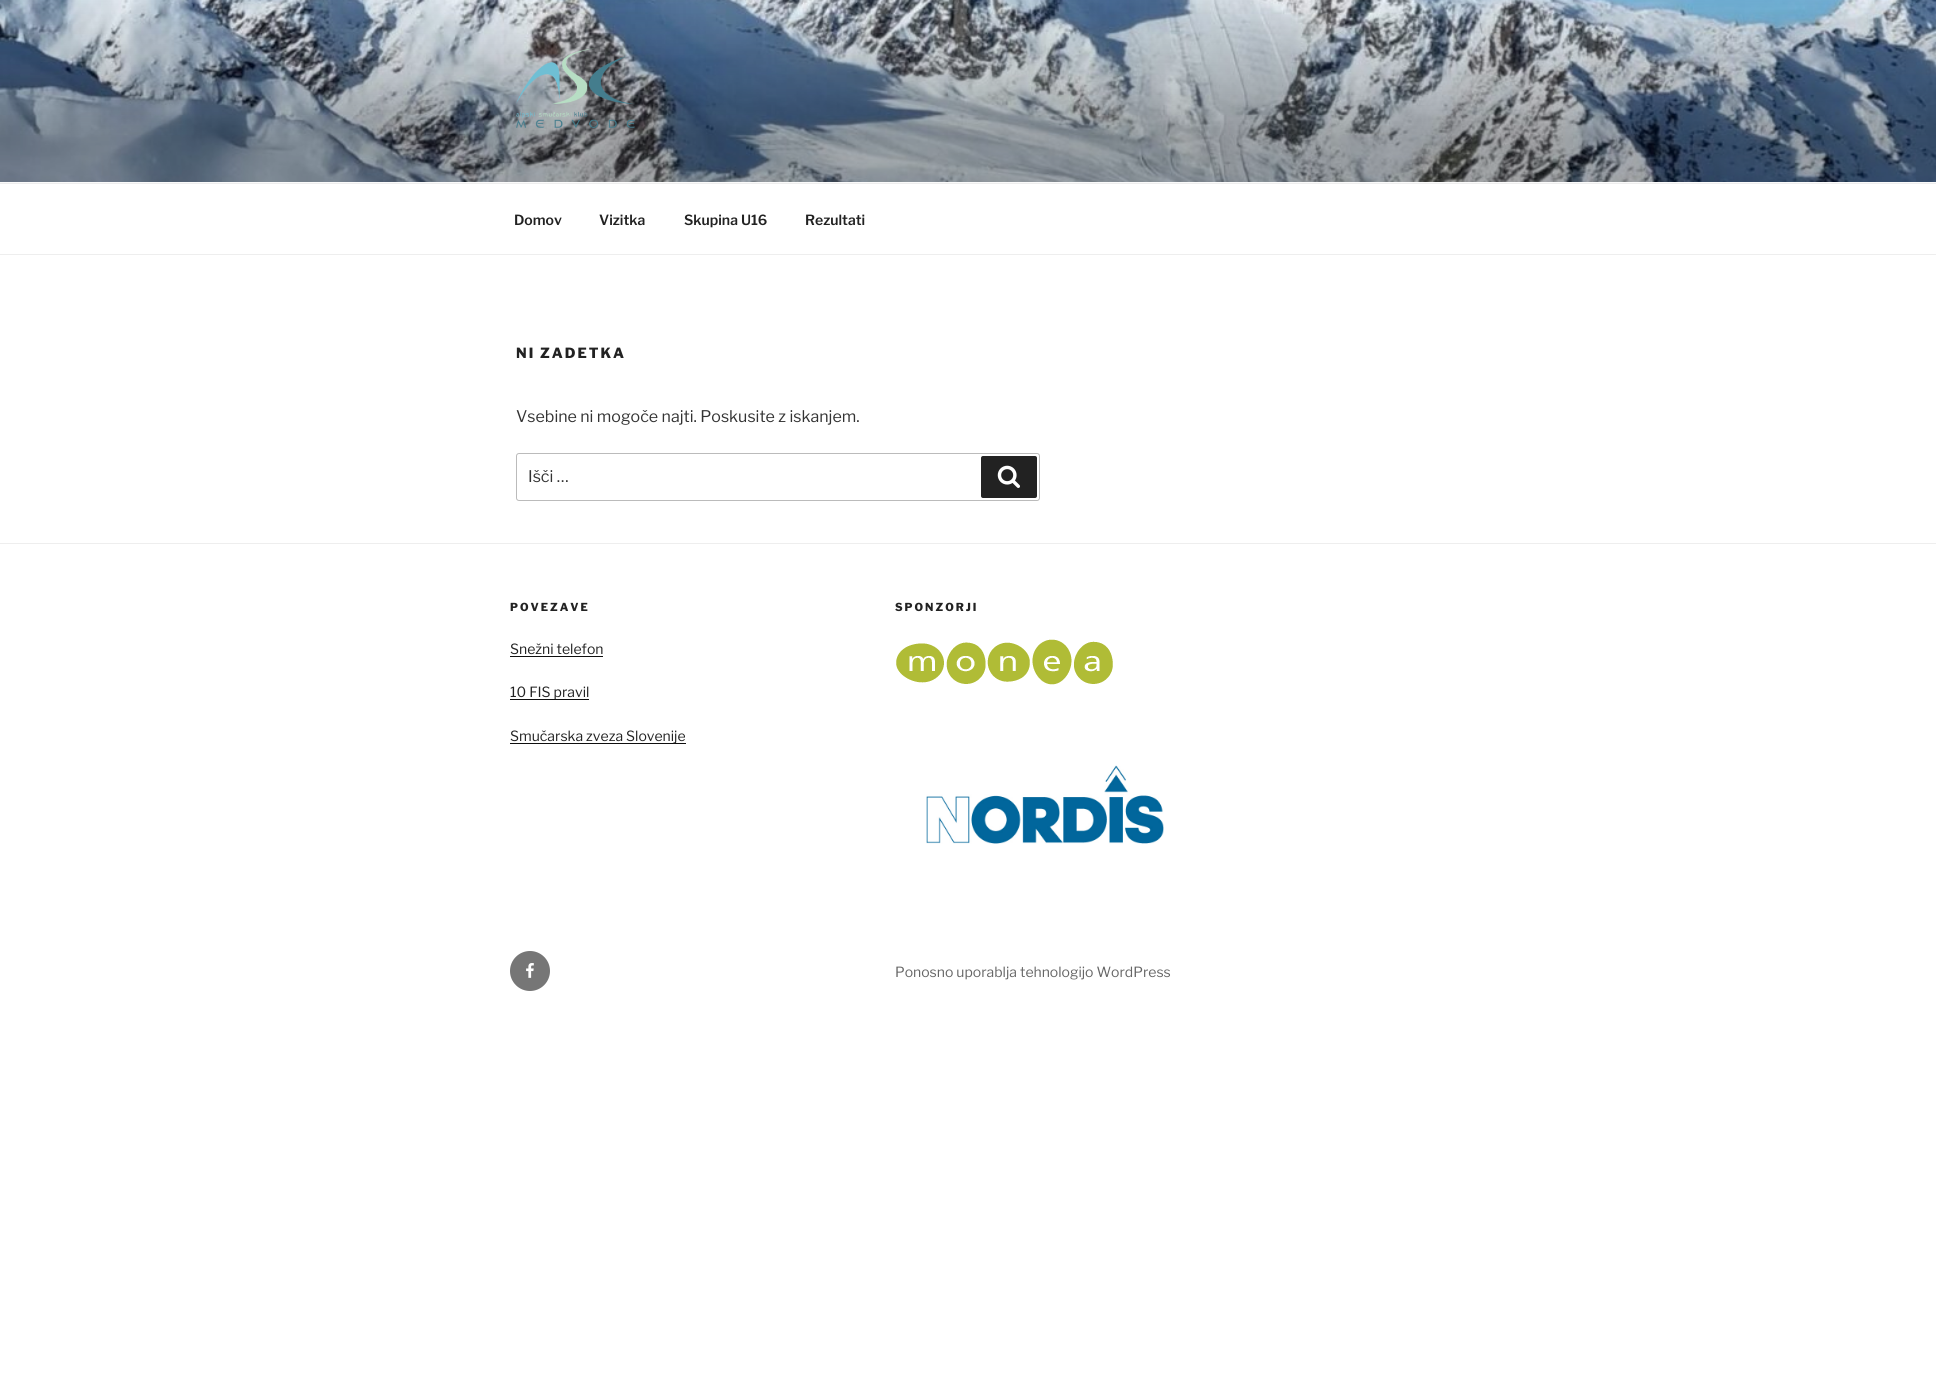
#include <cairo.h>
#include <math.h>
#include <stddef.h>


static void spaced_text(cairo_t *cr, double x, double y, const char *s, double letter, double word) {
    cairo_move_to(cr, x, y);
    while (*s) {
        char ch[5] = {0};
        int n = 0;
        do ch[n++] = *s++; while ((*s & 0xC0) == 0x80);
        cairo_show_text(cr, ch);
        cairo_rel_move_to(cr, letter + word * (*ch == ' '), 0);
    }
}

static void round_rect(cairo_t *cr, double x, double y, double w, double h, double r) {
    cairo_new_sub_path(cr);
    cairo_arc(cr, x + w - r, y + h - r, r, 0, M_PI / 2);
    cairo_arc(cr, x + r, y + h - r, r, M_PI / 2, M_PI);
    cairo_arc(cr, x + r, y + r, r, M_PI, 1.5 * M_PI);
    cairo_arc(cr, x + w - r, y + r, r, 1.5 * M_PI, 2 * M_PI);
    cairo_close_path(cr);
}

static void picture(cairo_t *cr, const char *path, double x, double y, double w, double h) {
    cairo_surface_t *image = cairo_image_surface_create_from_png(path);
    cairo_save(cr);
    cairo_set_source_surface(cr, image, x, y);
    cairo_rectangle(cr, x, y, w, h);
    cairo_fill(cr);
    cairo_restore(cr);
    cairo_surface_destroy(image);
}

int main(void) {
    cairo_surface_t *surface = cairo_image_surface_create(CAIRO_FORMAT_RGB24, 1936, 1391);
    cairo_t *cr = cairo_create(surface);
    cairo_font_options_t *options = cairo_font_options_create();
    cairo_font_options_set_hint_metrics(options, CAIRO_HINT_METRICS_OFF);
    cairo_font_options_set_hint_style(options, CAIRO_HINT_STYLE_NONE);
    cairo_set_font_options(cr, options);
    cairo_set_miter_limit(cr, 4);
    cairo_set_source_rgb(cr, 1, 1, 1);
    cairo_paint(cr);
    cairo_set_source_rgb(cr, 0.98, 0.98, 0.98);
    cairo_rectangle(cr, 0, 182, 1936, 1);
    cairo_fill(cr);
    picture(cr, "img1.png", 0, 0, 1936, 182);
    picture(cr, "img2.png", 516, 48, 119, 80);
    cairo_set_source_rgb(cr, 0.933, 0.933, 0.933);
    cairo_rectangle(cr, 0, 183, 1936, 1);
    cairo_fill(cr);
    cairo_rectangle(cr, 0, 254, 1936, 1);
    cairo_fill(cr);
    cairo_select_font_face(cr, "Libre Franklin SemiBold", CAIRO_FONT_SLANT_NORMAL, CAIRO_FONT_WEIGHT_NORMAL);
    cairo_set_font_size(cr, 14);
    cairo_set_source_rgb(cr, 0.133, 0.133, 0.133);
    cairo_move_to(cr, 514, 225);
    cairo_show_text(cr, "Domov");
    cairo_move_to(cr, 599, 225);
    cairo_show_text(cr, "Vizitka");
    cairo_move_to(cr, 684, 225);
    cairo_show_text(cr, "Skupina U16");
    cairo_move_to(cr, 805, 225);
    cairo_show_text(cr, "Rezultati");
    cairo_select_font_face(cr, "Libre Franklin ExtraBold", CAIRO_FONT_SLANT_NORMAL, CAIRO_FONT_WEIGHT_NORMAL);
    spaced_text(cr, 516, 358, "NI ZADETKA", 2, 0);
    cairo_select_font_face(cr, "Libre Franklin", CAIRO_FONT_SLANT_NORMAL, CAIRO_FONT_WEIGHT_NORMAL);
    cairo_set_font_size(cr, 16);
    cairo_set_source_rgb(cr, 0.2, 0.2, 0.2);
    cairo_move_to(cr, 516, 422);
    cairo_show_text(cr, "Vsebine ni mogoče najti. Poskusite z iskanjem.");
    round_rect(cr, 516.5, 453.5, 523, 47, 2.5);
    cairo_set_source_rgb(cr, 0.733, 0.733, 0.733);
    cairo_set_line_width(cr, 1);
    cairo_stroke(cr);
    cairo_set_source_rgb(cr, 0.2, 0.2, 0.2);
    cairo_move_to(cr, 528, 482);
    cairo_show_text(cr, "Išči …");
    cairo_set_source_rgb(cr, 0.133, 0.133, 0.133);
    round_rect(cr, 981, 456, 56, 42, 2);
    cairo_fill(cr);
    picture(cr, "img3.png", 997, 465, 23, 23);
    cairo_set_source_rgb(cr, 0.933, 0.933, 0.933);
    cairo_rectangle(cr, 0, 543, 1936, 1);
    cairo_fill(cr);
    cairo_select_font_face(cr, "Libre Franklin ExtraBold", CAIRO_FONT_SLANT_NORMAL, CAIRO_FONT_WEIGHT_NORMAL);
    cairo_set_font_size(cr, 11);
    cairo_set_source_rgb(cr, 0.133, 0.133, 0.133);
    spaced_text(cr, 510, 611, "POVEZAVE", 2, 0);
    cairo_select_font_face(cr, "Libre Franklin", CAIRO_FONT_SLANT_NORMAL, CAIRO_FONT_WEIGHT_NORMAL);
    cairo_set_font_size(cr, 14);
    cairo_move_to(cr, 510, 654);
    cairo_show_text(cr, "Snežni telefon");
    cairo_set_source_rgb(cr, 0.059, 0.059, 0.059);
    cairo_rectangle(cr, 510, 656, 93, 1);
    cairo_fill(cr);
    cairo_rectangle(cr, 510, 699, 79, 1);
    cairo_fill(cr);
    cairo_set_source_rgb(cr, 0.133, 0.133, 0.133);
    cairo_move_to(cr, 510, 697);
    cairo_show_text(cr, "10 FIS pravil");
    cairo_set_source_rgb(cr, 0.059, 0.059, 0.059);
    cairo_rectangle(cr, 510, 743, 176, 1);
    cairo_fill(cr);
    cairo_set_source_rgb(cr, 0.133, 0.133, 0.133);
    cairo_move_to(cr, 510, 741);
    cairo_show_text(cr, "Smučarska zveza Slovenije");
    cairo_select_font_face(cr, "Libre Franklin ExtraBold", CAIRO_FONT_SLANT_NORMAL, CAIRO_FONT_WEIGHT_NORMAL);
    cairo_set_font_size(cr, 11);
    spaced_text(cr, 895, 611, "SPONZORJI", 2, 0);
    picture(cr, "img4.png", 896, 639, 217, 46);
    picture(cr, "img5.png", 926, 765, 238, 79);
    cairo_set_source_rgb(cr, 0.463, 0.463, 0.463);
    cairo_arc(cr, 530, 971, 20, 0, 2 * M_PI);
    cairo_fill(cr);
    picture(cr, "img6.png", 526, 963, 8, 15);
    cairo_select_font_face(cr, "Libre Franklin", CAIRO_FONT_SLANT_NORMAL, CAIRO_FONT_WEIGHT_NORMAL);
    cairo_set_font_size(cr, 14);
    cairo_set_source_rgb(cr, 0.4, 0.4, 0.4);
    cairo_move_to(cr, 895, 977);
    cairo_show_text(cr, "Ponosno uporablja tehnologijo WordPress");
    cairo_surface_write_to_png(surface, "page.png");
    cairo_font_options_destroy(options);
    cairo_destroy(cr);
    cairo_surface_destroy(surface);
    return 0;
}
